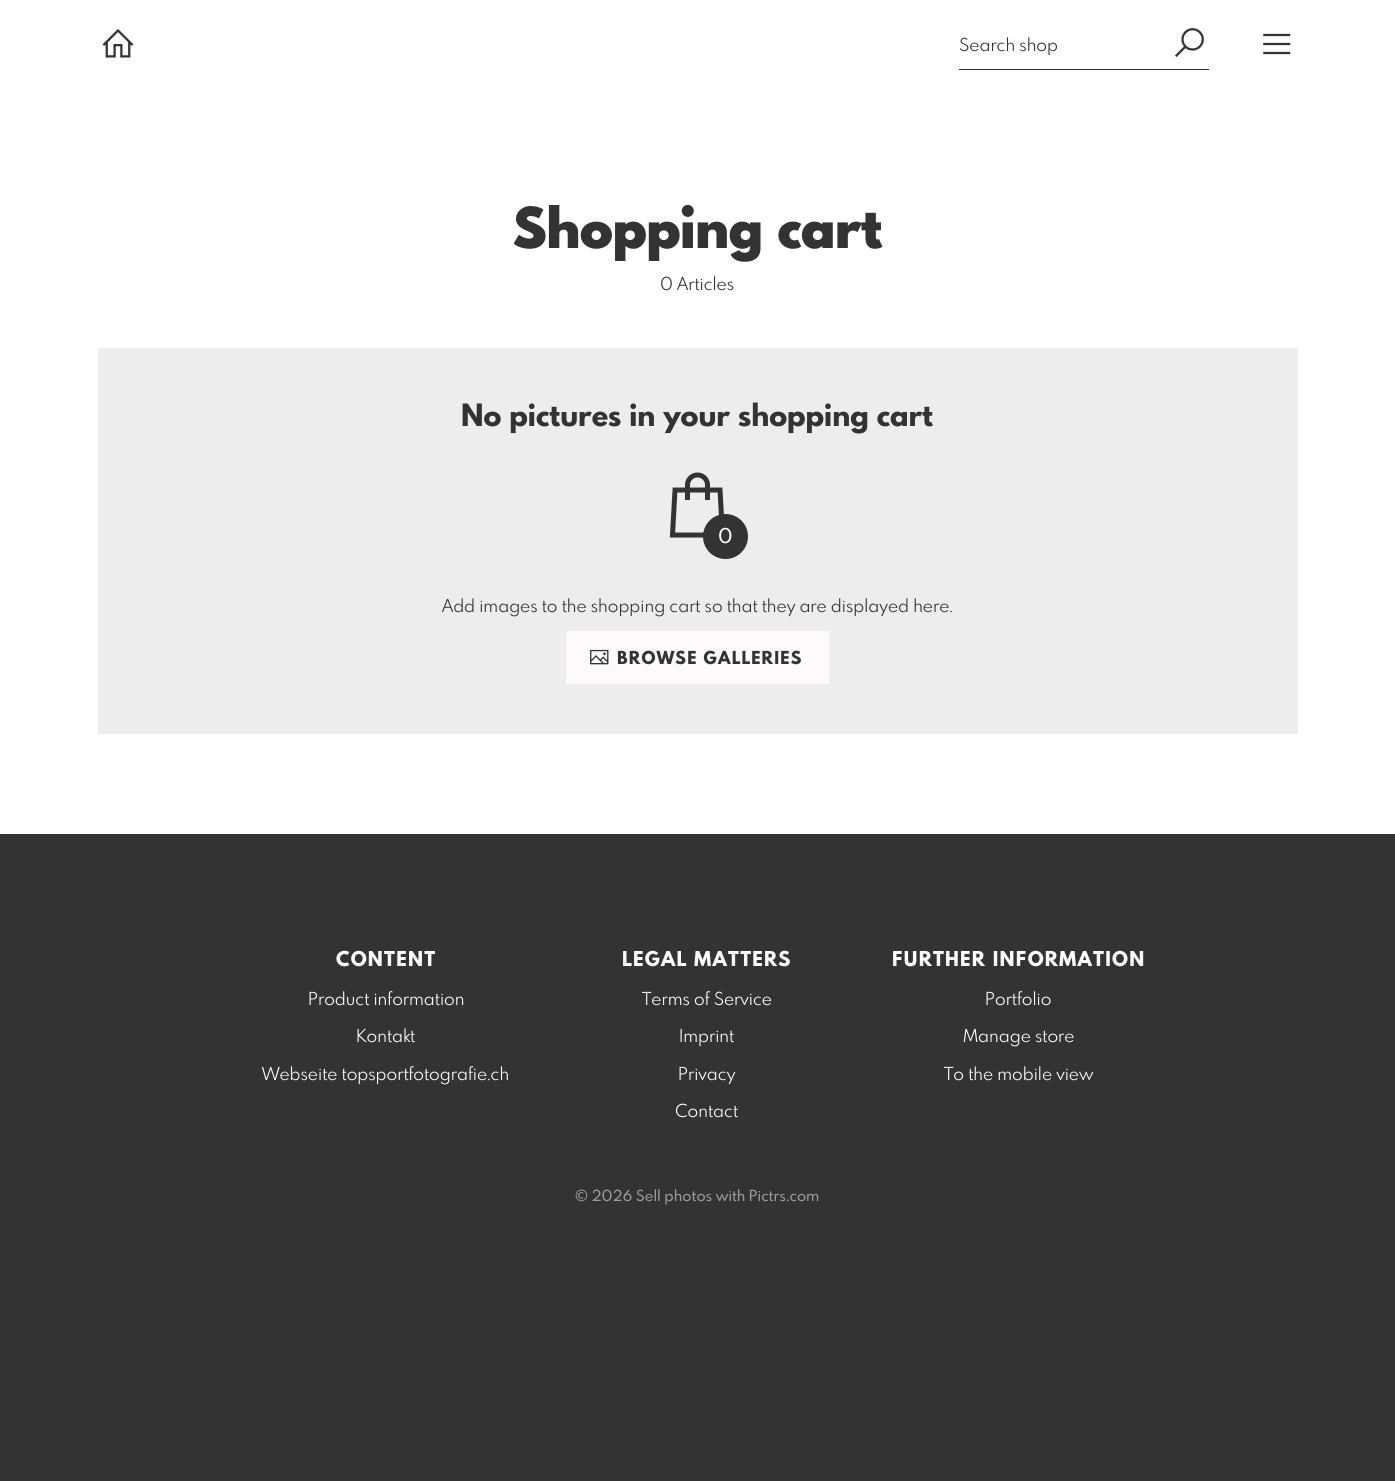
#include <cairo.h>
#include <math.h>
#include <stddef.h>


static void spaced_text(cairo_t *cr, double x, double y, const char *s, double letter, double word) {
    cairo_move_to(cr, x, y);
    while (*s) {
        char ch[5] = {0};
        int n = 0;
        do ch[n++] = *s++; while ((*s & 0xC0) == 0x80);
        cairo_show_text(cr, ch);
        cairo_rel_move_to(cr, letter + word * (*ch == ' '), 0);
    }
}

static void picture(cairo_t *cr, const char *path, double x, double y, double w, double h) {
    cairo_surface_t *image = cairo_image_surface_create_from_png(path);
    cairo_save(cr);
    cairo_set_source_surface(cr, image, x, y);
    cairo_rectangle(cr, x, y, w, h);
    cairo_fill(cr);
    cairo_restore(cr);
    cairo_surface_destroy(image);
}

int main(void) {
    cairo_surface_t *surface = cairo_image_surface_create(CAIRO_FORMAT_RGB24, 1395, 1481);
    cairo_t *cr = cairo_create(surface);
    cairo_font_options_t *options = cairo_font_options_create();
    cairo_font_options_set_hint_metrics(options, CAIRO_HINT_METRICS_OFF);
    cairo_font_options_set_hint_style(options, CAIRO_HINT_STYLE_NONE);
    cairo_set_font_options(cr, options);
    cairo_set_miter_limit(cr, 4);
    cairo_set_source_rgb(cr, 0.2, 0.2, 0.2);
    cairo_paint(cr);
    cairo_set_source_rgb(cr, 1, 1, 1);
    cairo_rectangle(cr, 0, 0, 1395, 834);
    cairo_fill(cr);
    picture(cr, "img1.png", 102, 29, 32, 29);
    cairo_set_source_rgb(cr, 0.2, 0.2, 0.2);
    cairo_rectangle(cr, 959, 69, 250, 1);
    cairo_fill(cr);
    cairo_select_font_face(cr, "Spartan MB", CAIRO_FONT_SLANT_NORMAL, CAIRO_FONT_WEIGHT_NORMAL);
    cairo_set_font_size(cr, 17.5);
    cairo_move_to(cr, 959, 51);
    cairo_show_text(cr, "Search shop");
    picture(cr, "img2.png", 1175, 28, 29, 29);
    picture(cr, "img3.png", 1263, 33, 28, 22);
    cairo_select_font_face(cr, "Spartan MB Black", CAIRO_FONT_SLANT_NORMAL, CAIRO_FONT_WEIGHT_NORMAL);
    cairo_set_font_size(cr, 55);
    cairo_move_to(cr, 513, 248);
    cairo_show_text(cr, "Shopping cart");
    cairo_select_font_face(cr, "Spartan MB", CAIRO_FONT_SLANT_NORMAL, CAIRO_FONT_WEIGHT_NORMAL);
    cairo_set_font_size(cr, 17.5);
    cairo_move_to(cr, 660, 290);
    cairo_show_text(cr, "0 Articles");
    cairo_set_source_rgb(cr, 0.929, 0.929, 0.929);
    cairo_rectangle(cr, 98, 348, 1200, 386);
    cairo_fill(cr);
    cairo_select_font_face(cr, "Spartan MB ExtraBold", CAIRO_FONT_SLANT_NORMAL, CAIRO_FONT_WEIGHT_NORMAL);
    cairo_set_font_size(cr, 30);
    cairo_set_source_rgb(cr, 0.2, 0.2, 0.2);
    cairo_move_to(cr, 461, 426);
    cairo_show_text(cr, "No pictures in your shopping cart");
    picture(cr, "img4.png", 669, 472, 55, 66);
    cairo_arc(cr, 725.5, 536.5, 22.5, 0, 2 * M_PI);
    cairo_fill(cr);
    cairo_select_font_face(cr, "Spartan MB Medium", CAIRO_FONT_SLANT_NORMAL, CAIRO_FONT_WEIGHT_NORMAL);
    cairo_set_font_size(cr, 20);
    cairo_set_source_rgb(cr, 0.988, 0.98, 0.98);
    cairo_move_to(cr, 718, 543);
    cairo_show_text(cr, "0");
    cairo_select_font_face(cr, "Spartan MB", CAIRO_FONT_SLANT_NORMAL, CAIRO_FONT_WEIGHT_NORMAL);
    cairo_set_font_size(cr, 17.5);
    cairo_set_source_rgb(cr, 0.2, 0.2, 0.2);
    cairo_move_to(cr, 442, 612);
    cairo_show_text(cr, "Add images to the shopping cart so that they are displayed here.");
    cairo_set_source_rgb(cr, 0.988, 0.98, 0.98);
    cairo_rectangle(cr, 566, 631, 263, 53);
    cairo_fill(cr);
    picture(cr, "img5.png", 590, 649, 19, 16);
    cairo_select_font_face(cr, "Spartan MB ExtraBold", CAIRO_FONT_SLANT_NORMAL, CAIRO_FONT_WEIGHT_NORMAL);
    cairo_set_source_rgb(cr, 0.2, 0.2, 0.2);
    spaced_text(cr, 617, 664, "BROWSE GALLERIES", 1.25, 0);
    cairo_set_font_size(cr, 20);
    cairo_set_source_rgb(cr, 0.988, 0.98, 0.98);
    spaced_text(cr, 336, 966, "CONTENT", 1.25, 0);
    cairo_select_font_face(cr, "Spartan MB", CAIRO_FONT_SLANT_NORMAL, CAIRO_FONT_WEIGHT_NORMAL);
    cairo_set_font_size(cr, 17.5);
    cairo_move_to(cr, 308, 1005);
    cairo_show_text(cr, "Product information");
    cairo_move_to(cr, 356, 1042);
    cairo_show_text(cr, "Kontakt");
    cairo_move_to(cr, 262, 1080);
    cairo_show_text(cr, "Webseite topsportfotografie.ch");
    cairo_select_font_face(cr, "Spartan MB ExtraBold", CAIRO_FONT_SLANT_NORMAL, CAIRO_FONT_WEIGHT_NORMAL);
    cairo_set_font_size(cr, 20);
    spaced_text(cr, 622, 966, "LEGAL MATTERS", 1.25, 0);
    cairo_select_font_face(cr, "Spartan MB", CAIRO_FONT_SLANT_NORMAL, CAIRO_FONT_WEIGHT_NORMAL);
    cairo_set_font_size(cr, 17.5);
    cairo_move_to(cr, 642, 1005);
    cairo_show_text(cr, "Terms of Service");
    cairo_move_to(cr, 679, 1042);
    cairo_show_text(cr, "Imprint");
    cairo_move_to(cr, 678, 1080);
    cairo_show_text(cr, "Privacy");
    cairo_move_to(cr, 675, 1117);
    cairo_show_text(cr, "Contact");
    cairo_select_font_face(cr, "Spartan MB ExtraBold", CAIRO_FONT_SLANT_NORMAL, CAIRO_FONT_WEIGHT_NORMAL);
    cairo_set_font_size(cr, 20);
    spaced_text(cr, 892, 966, "FURTHER INFORMATION", 1.25, 0);
    cairo_select_font_face(cr, "Spartan MB", CAIRO_FONT_SLANT_NORMAL, CAIRO_FONT_WEIGHT_NORMAL);
    cairo_set_font_size(cr, 17.5);
    cairo_move_to(cr, 985, 1005);
    cairo_show_text(cr, "Portfolio");
    cairo_move_to(cr, 963, 1042);
    cairo_show_text(cr, "Manage store");
    cairo_move_to(cr, 944, 1080);
    cairo_show_text(cr, "To the mobile view");
    cairo_select_font_face(cr, "Spartan MB Medium", CAIRO_FONT_SLANT_NORMAL, CAIRO_FONT_WEIGHT_NORMAL);
    cairo_set_font_size(cr, 15);
    cairo_set_source_rgb(cr, 0.608, 0.608, 0.608);
    cairo_move_to(cr, 575, 1201);
    cairo_show_text(cr, "© 2026 Sell photos with Pictrs.com");
    cairo_surface_write_to_png(surface, "page.png");
    cairo_font_options_destroy(options);
    cairo_destroy(cr);
    cairo_surface_destroy(surface);
    return 0;
}
